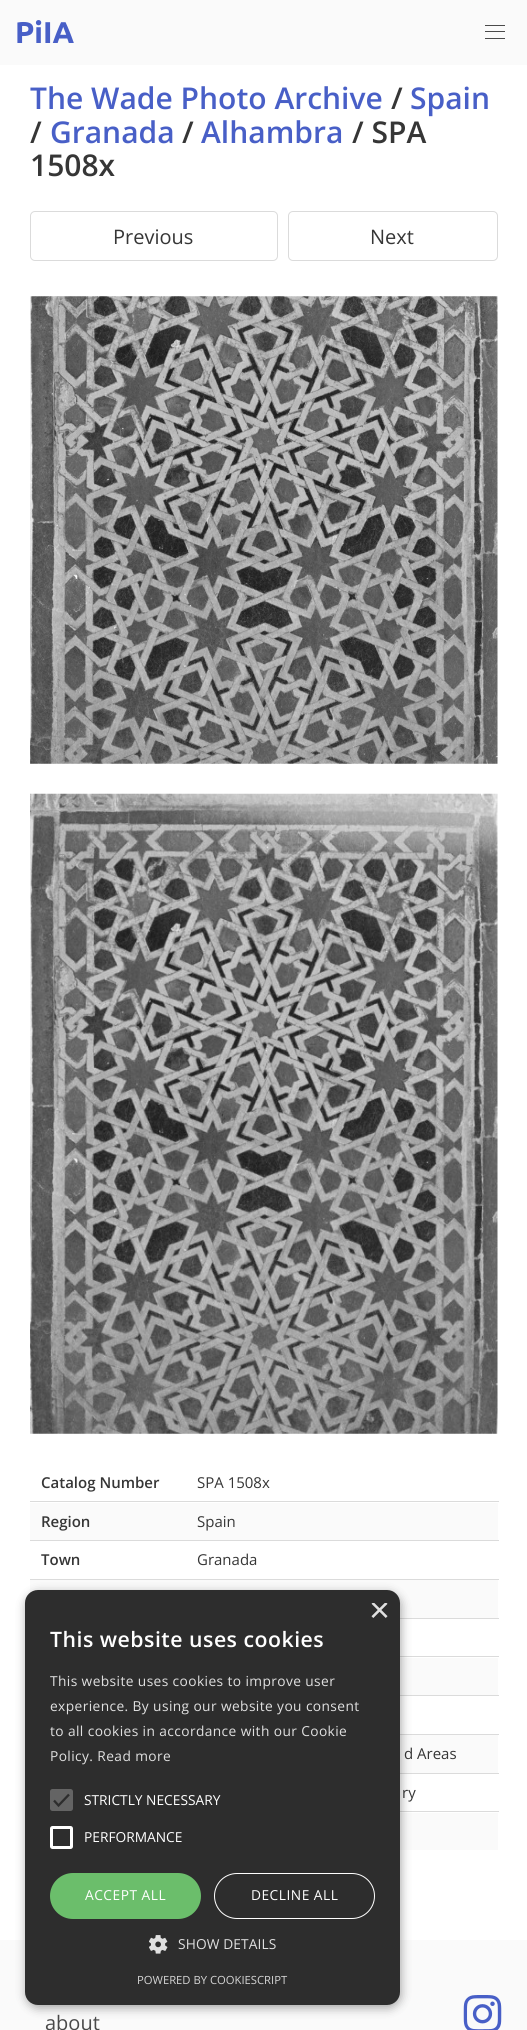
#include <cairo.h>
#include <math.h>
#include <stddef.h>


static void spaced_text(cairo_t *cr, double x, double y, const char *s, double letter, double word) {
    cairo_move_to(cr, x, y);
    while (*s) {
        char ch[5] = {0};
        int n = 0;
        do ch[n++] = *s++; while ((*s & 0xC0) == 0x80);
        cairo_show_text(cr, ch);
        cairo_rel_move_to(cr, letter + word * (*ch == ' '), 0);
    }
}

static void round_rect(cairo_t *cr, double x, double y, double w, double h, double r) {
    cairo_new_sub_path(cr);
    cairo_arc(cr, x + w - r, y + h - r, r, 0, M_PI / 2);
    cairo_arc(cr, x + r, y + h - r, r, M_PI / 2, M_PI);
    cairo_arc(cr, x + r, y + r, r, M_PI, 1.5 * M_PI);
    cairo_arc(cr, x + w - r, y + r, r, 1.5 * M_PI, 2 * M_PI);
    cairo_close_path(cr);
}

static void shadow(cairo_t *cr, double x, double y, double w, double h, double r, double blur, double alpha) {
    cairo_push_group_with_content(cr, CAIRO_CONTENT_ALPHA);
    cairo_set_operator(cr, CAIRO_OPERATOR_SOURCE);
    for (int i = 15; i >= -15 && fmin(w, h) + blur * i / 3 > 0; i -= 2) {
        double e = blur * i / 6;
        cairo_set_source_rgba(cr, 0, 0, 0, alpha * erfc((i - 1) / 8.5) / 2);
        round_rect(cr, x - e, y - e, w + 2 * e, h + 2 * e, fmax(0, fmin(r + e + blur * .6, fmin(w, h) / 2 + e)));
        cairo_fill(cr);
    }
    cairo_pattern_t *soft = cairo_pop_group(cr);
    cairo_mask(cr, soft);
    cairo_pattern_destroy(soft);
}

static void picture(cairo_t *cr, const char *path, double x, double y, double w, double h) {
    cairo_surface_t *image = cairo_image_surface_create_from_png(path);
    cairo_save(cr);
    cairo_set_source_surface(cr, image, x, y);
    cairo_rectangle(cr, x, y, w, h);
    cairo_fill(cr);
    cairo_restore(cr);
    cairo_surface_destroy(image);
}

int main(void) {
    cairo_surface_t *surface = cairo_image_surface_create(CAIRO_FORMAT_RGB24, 527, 2030);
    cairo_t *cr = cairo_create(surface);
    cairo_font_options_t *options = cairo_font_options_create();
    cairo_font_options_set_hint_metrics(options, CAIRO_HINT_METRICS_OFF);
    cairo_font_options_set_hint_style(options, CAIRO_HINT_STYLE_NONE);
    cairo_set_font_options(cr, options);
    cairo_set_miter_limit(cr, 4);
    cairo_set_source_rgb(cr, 1, 1, 1);
    cairo_paint(cr);
    cairo_set_source_rgb(cr, 0.98, 0.98, 0.98);
    cairo_rectangle(cr, 0, 0, 527, 65);
    cairo_fill(cr);
    cairo_select_font_face(cr, "Ubuntu", CAIRO_FONT_SLANT_NORMAL, CAIRO_FONT_WEIGHT_BOLD);
    cairo_set_font_size(cr, 30);
    cairo_set_source_rgb(cr, 0.282, 0.373, 0.78);
    cairo_move_to(cr, 15, 43);
    cairo_show_text(cr, "PiIA");
    cairo_set_source_rgb(cr, 0.29, 0.29, 0.29);
    cairo_rectangle(cr, 485, 25, 20, 1);
    cairo_fill(cr);
    cairo_rectangle(cr, 485, 31, 20, 1);
    cairo_fill(cr);
    cairo_rectangle(cr, 485, 38, 20, 1);
    cairo_fill(cr);
    cairo_select_font_face(cr, "Open Sans SemiBold", CAIRO_FONT_SLANT_NORMAL, CAIRO_FONT_WEIGHT_NORMAL);
    cairo_set_source_rgb(cr, 0.282, 0.373, 0.78);
    cairo_move_to(cr, 30, 109);
    cairo_show_text(cr, "The Wade Photo Archive");
    cairo_set_source_rgb(cr, 0.212, 0.212, 0.212);
    cairo_move_to(cr, 391, 109);
    cairo_show_text(cr, "/");
    cairo_set_source_rgb(cr, 0.282, 0.373, 0.78);
    cairo_move_to(cr, 410, 109);
    cairo_show_text(cr, "Spain");
    cairo_set_source_rgb(cr, 0.212, 0.212, 0.212);
    cairo_move_to(cr, 30, 143);
    cairo_show_text(cr, "/");
    cairo_set_source_rgb(cr, 0.282, 0.373, 0.78);
    cairo_move_to(cr, 50, 143);
    cairo_show_text(cr, "Granada");
    cairo_set_source_rgb(cr, 0.212, 0.212, 0.212);
    cairo_move_to(cr, 182, 143);
    cairo_show_text(cr, "/");
    cairo_set_source_rgb(cr, 0.282, 0.373, 0.78);
    cairo_move_to(cr, 201, 143);
    cairo_show_text(cr, "Alhambra");
    cairo_set_source_rgb(cr, 0.212, 0.212, 0.212);
    cairo_move_to(cr, 352, 143);
    cairo_show_text(cr, "/ SPA");
    cairo_move_to(cr, 30, 176);
    cairo_show_text(cr, "1508x");
    round_rect(cr, 30.5, 211.5, 247, 49, 4.5);
    cairo_set_source_rgb(cr, 0.859, 0.859, 0.859);
    cairo_set_line_width(cr, 1);
    cairo_stroke(cr);
    cairo_select_font_face(cr, "Open Sans", CAIRO_FONT_SLANT_NORMAL, CAIRO_FONT_WEIGHT_NORMAL);
    cairo_set_font_size(cr, 20);
    cairo_set_source_rgb(cr, 0.212, 0.212, 0.212);
    cairo_move_to(cr, 113, 244);
    cairo_show_text(cr, "Previous");
    round_rect(cr, 288.5, 211.5, 209, 49, 4.5);
    cairo_set_source_rgb(cr, 0.859, 0.859, 0.859);
    cairo_stroke(cr);
    cairo_set_source_rgb(cr, 0.212, 0.212, 0.212);
    cairo_move_to(cr, 370, 244);
    cairo_show_text(cr, "Next");
    picture(cr, "img1.png", 30, 296, 468, 468);
    picture(cr, "img2.png", 30, 793, 468, 641);
    cairo_select_font_face(cr, "Open Sans SemiBold", CAIRO_FONT_SLANT_NORMAL, CAIRO_FONT_WEIGHT_NORMAL);
    cairo_set_font_size(cr, 15);
    cairo_move_to(cr, 41, 1488);
    cairo_show_text(cr, "Catalog Number");
    cairo_set_source_rgb(cr, 0.859, 0.859, 0.859);
    cairo_rectangle(cr, 30, 1501, 469, 1);
    cairo_fill(cr);
    cairo_select_font_face(cr, "Open Sans", CAIRO_FONT_SLANT_NORMAL, CAIRO_FONT_WEIGHT_NORMAL);
    cairo_set_source_rgb(cr, 0.212, 0.212, 0.212);
    cairo_move_to(cr, 197, 1488);
    cairo_show_text(cr, "SPA 1508x");
    cairo_set_source_rgb(cr, 0.98, 0.98, 0.98);
    cairo_rectangle(cr, 30, 1503, 468, 37);
    cairo_fill(cr);
    cairo_select_font_face(cr, "Open Sans SemiBold", CAIRO_FONT_SLANT_NORMAL, CAIRO_FONT_WEIGHT_NORMAL);
    cairo_set_source_rgb(cr, 0.212, 0.212, 0.212);
    cairo_move_to(cr, 41, 1527);
    cairo_show_text(cr, "Region");
    cairo_set_source_rgb(cr, 0.859, 0.859, 0.859);
    cairo_rectangle(cr, 30, 1540, 469, 1);
    cairo_fill(cr);
    cairo_select_font_face(cr, "Open Sans", CAIRO_FONT_SLANT_NORMAL, CAIRO_FONT_WEIGHT_NORMAL);
    cairo_set_source_rgb(cr, 0.212, 0.212, 0.212);
    cairo_move_to(cr, 197, 1527);
    cairo_show_text(cr, "Spain");
    cairo_select_font_face(cr, "Open Sans SemiBold", CAIRO_FONT_SLANT_NORMAL, CAIRO_FONT_WEIGHT_NORMAL);
    cairo_move_to(cr, 41, 1565);
    cairo_show_text(cr, "Town");
    cairo_set_source_rgb(cr, 0.859, 0.859, 0.859);
    cairo_rectangle(cr, 30, 1579, 469, 1);
    cairo_fill(cr);
    cairo_select_font_face(cr, "Open Sans", CAIRO_FONT_SLANT_NORMAL, CAIRO_FONT_WEIGHT_NORMAL);
    cairo_set_source_rgb(cr, 0.212, 0.212, 0.212);
    cairo_move_to(cr, 197, 1565);
    cairo_show_text(cr, "Granada");
    cairo_set_source_rgb(cr, 0.98, 0.98, 0.98);
    cairo_rectangle(cr, 30, 1580, 468, 38);
    cairo_fill(cr);
    cairo_set_source_rgb(cr, 0.859, 0.859, 0.859);
    cairo_rectangle(cr, 400, 1618, 99, 1);
    cairo_fill(cr);
    cairo_rectangle(cr, 400, 1656, 99, 1);
    cairo_fill(cr);
    cairo_set_source_rgb(cr, 0.98, 0.98, 0.98);
    cairo_rectangle(cr, 400, 1658, 98, 37);
    cairo_fill(cr);
    cairo_set_source_rgb(cr, 0.859, 0.859, 0.859);
    cairo_rectangle(cr, 400, 1695, 99, 1);
    cairo_fill(cr);
    cairo_rectangle(cr, 400, 1734, 99, 1);
    cairo_fill(cr);
    cairo_set_source_rgb(cr, 0.98, 0.98, 0.98);
    cairo_rectangle(cr, 400, 1735, 98, 38);
    cairo_fill(cr);
    cairo_set_source_rgb(cr, 0.859, 0.859, 0.859);
    cairo_rectangle(cr, 400, 1773, 99, 1);
    cairo_fill(cr);
    cairo_set_source_rgb(cr, 0.212, 0.212, 0.212);
    cairo_move_to(cr, 404, 1759);
    cairo_show_text(cr, "d Areas");
    cairo_set_source_rgb(cr, 0.859, 0.859, 0.859);
    cairo_rectangle(cr, 400, 1811, 99, 1);
    cairo_fill(cr);
    cairo_set_source_rgb(cr, 0.212, 0.212, 0.212);
    cairo_move_to(cr, 402, 1798);
    cairo_show_text(cr, "ry");
    cairo_set_source_rgb(cr, 0.98, 0.98, 0.98);
    cairo_rectangle(cr, 400, 1813, 98, 37);
    cairo_fill(cr);
    cairo_rectangle(cr, 0, 1940, 527, 90);
    cairo_fill(cr);
    cairo_set_font_size(cr, 20);
    cairo_set_source_rgb(cr, 0.29, 0.29, 0.29);
    cairo_move_to(cr, 45, 2030);
    cairo_show_text(cr, "about");
    picture(cr, "img3.png", 463, 1995, 39, 35);
    cairo_set_source_rgb(cr, 0, 0, 0);
    shadow(cr, 26, 1593, 375, 415, 13, 5, 0.35);
    cairo_set_source_rgb(cr, 0.176, 0.176, 0.176);
    round_rect(cr, 25, 1590, 375, 415, 13);
    cairo_fill(cr);
    cairo_save(cr);
    cairo_rectangle(cr, 369, 1603, 19, 18);
    cairo_clip(cr);
    cairo_select_font_face(cr, "Liberation Sans", CAIRO_FONT_SLANT_NORMAL, CAIRO_FONT_WEIGHT_NORMAL);
    cairo_set_font_size(cr, 36);
    cairo_set_source_rgb(cr, 0.878, 0.878, 0.878);
    cairo_move_to(cr, 369, 1622);
    cairo_show_text(cr, "×");
    cairo_restore(cr);
    cairo_select_font_face(cr, "Open Sans SemiBold", CAIRO_FONT_SLANT_NORMAL, CAIRO_FONT_WEIGHT_NORMAL);
    cairo_set_font_size(cr, 21.25);
    cairo_set_source_rgb(cr, 1, 1, 1);
    spaced_text(cr, 50, 1647, "This website uses cookies", 0.5, 0);
    cairo_select_font_face(cr, "Open Sans", CAIRO_FONT_SLANT_NORMAL, CAIRO_FONT_WEIGHT_NORMAL);
    cairo_set_font_size(cr, 13.75);
    cairo_set_source_rgb(cr, 0.878, 0.878, 0.878);
    spaced_text(cr, 50, 1686, "This website uses cookies to improve user", 0.4, 0);
    spaced_text(cr, 50, 1711, "experience. By using our website you consent", 0.4, 0);
    spaced_text(cr, 50, 1736, "to all cookies in accordance with our Cookie", 0.4, 0);
    spaced_text(cr, 50, 1761, "Policy. Read more", 0.4, 0);
    cairo_set_source_rgb(cr, 0.392, 0.392, 0.392);
    round_rect(cr, 50, 1789, 23, 22, 2.5);
    cairo_fill(cr);
    cairo_new_path(cr);
    cairo_move_to(cr, 54, 1800.5);
    cairo_line_to(cr, 58.5, 1805.5);
    cairo_line_to(cr, 69, 1794.5);
    cairo_set_source_rgb(cr, 0.176, 0.176, 0.176);
    cairo_set_line_width(cr, 2.3);
    cairo_stroke(cr);
    cairo_set_source_rgb(cr, 1, 1, 1);
    cairo_move_to(cr, 84, 1805);
    cairo_show_text(cr, "STRICTLY NECESSARY");
    round_rect(cr, 51.5, 1827.5, 20, 20, 1);
    cairo_set_line_width(cr, 3);
    cairo_stroke(cr);
    cairo_move_to(cr, 84, 1842);
    cairo_show_text(cr, "PERFORMANCE");
    cairo_set_source_rgb(cr, 0.42, 0.745, 0.42);
    round_rect(cr, 50, 1873, 151, 46, 23);
    cairo_fill(cr);
    cairo_set_source_rgb(cr, 1, 1, 1);
    spaced_text(cr, 85, 1900, "ACCEPT ALL", 0.5, 0);
    round_rect(cr, 214.5, 1873.5, 160, 45, 22.5);
    cairo_set_line_width(cr, 1);
    cairo_stroke(cr);
    spaced_text(cr, 251, 1900, "DECLINE ALL", 0.5, 0);
    picture(cr, "img4.png", 149, 1935, 19, 19);
    cairo_set_source_rgb(cr, 0.878, 0.878, 0.878);
    spaced_text(cr, 178, 1949, "SHOW DETAILS", 0.1, 0);
    cairo_set_font_size(cr, 11.25);
    cairo_set_source_rgb(cr, 0.835, 0.835, 0.835);
    cairo_move_to(cr, 137, 1984);
    cairo_show_text(cr, "POWERED BY COOKIESCRIPT");
    cairo_surface_write_to_png(surface, "page.png");
    cairo_font_options_destroy(options);
    cairo_destroy(cr);
    cairo_surface_destroy(surface);
    return 0;
}
